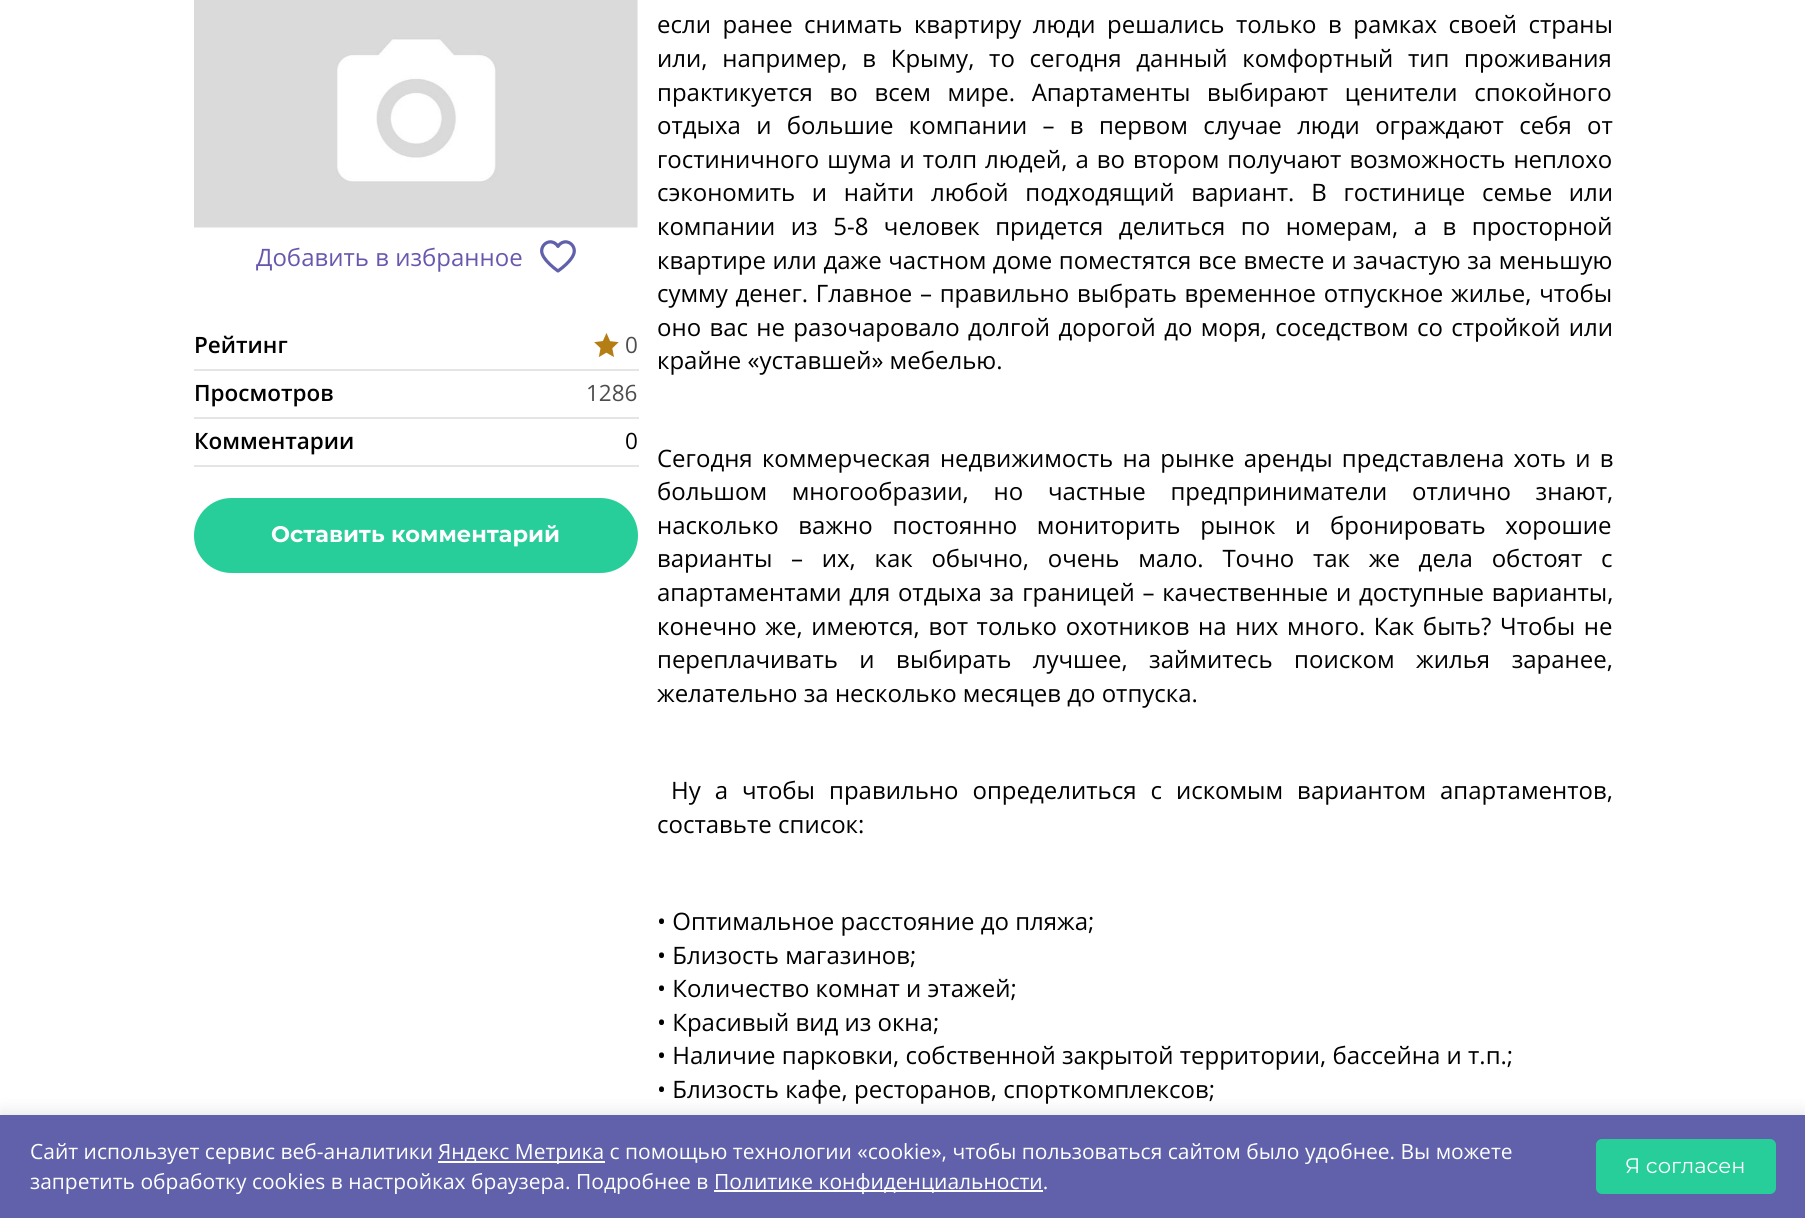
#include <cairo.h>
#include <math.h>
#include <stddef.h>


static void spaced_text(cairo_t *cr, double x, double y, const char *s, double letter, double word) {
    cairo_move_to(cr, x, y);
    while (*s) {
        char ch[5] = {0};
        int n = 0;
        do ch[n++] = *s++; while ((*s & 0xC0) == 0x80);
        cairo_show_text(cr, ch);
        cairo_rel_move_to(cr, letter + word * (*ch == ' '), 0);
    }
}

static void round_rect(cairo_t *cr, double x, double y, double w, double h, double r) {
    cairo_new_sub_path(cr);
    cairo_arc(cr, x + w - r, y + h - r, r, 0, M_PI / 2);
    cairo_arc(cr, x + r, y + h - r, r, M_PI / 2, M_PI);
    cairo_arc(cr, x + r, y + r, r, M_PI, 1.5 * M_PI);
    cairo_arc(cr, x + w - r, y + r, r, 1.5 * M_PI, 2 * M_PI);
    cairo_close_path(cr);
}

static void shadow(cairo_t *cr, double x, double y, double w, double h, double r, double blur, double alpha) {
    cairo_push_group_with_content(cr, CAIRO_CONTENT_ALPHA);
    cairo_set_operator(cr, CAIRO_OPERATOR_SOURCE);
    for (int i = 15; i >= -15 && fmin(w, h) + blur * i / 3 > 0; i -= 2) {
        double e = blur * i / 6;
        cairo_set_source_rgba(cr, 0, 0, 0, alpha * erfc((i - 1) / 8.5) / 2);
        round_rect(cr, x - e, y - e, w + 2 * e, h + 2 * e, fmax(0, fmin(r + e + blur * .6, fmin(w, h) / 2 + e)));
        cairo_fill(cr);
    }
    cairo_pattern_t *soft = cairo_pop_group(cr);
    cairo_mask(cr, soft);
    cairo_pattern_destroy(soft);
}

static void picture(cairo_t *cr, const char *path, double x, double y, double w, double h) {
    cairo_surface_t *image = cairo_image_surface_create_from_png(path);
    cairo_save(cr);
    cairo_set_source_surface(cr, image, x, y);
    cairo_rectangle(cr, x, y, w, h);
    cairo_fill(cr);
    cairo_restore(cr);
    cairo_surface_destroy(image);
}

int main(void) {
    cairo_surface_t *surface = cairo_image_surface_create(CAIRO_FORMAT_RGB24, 1805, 1218);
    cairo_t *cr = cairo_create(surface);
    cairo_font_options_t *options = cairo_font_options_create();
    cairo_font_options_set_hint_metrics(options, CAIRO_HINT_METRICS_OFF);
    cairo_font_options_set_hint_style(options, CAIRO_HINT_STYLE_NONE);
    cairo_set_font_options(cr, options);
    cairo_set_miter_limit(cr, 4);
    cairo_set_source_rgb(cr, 1, 1, 1);
    cairo_paint(cr);
    picture(cr, "img1.png", 194, 0, 444, 228);
    picture(cr, "img2.png", 540, 240, 36, 33);
    cairo_select_font_face(cr, "Open Sans", CAIRO_FONT_SLANT_NORMAL, CAIRO_FONT_WEIGHT_NORMAL);
    cairo_set_font_size(cr, 24);
    cairo_set_source_rgb(cr, 0.412, 0.341, 0.682);
    cairo_move_to(cr, 256, 266);
    cairo_show_text(cr, "Добавить в избранное");
    cairo_set_source_rgb(cr, 0.898, 0.898, 0.898);
    cairo_rectangle(cr, 194, 369, 445, 2);
    cairo_fill(cr);
    cairo_select_font_face(cr, "Open Sans SemiBold", CAIRO_FONT_SLANT_NORMAL, CAIRO_FONT_WEIGHT_NORMAL);
    cairo_set_font_size(cr, 22.5);
    cairo_set_source_rgb(cr, 0, 0, 0);
    cairo_move_to(cr, 194, 353);
    cairo_show_text(cr, "Рейтинг");
    picture(cr, "img3.png", 594, 333, 25, 24);
    cairo_select_font_face(cr, "Open Sans", CAIRO_FONT_SLANT_NORMAL, CAIRO_FONT_WEIGHT_NORMAL);
    cairo_set_source_rgb(cr, 0.302, 0.302, 0.302);
    cairo_move_to(cr, 625, 353);
    cairo_show_text(cr, "0");
    cairo_set_source_rgb(cr, 0.898, 0.898, 0.898);
    cairo_rectangle(cr, 194, 417, 445, 2);
    cairo_fill(cr);
    cairo_select_font_face(cr, "Open Sans SemiBold", CAIRO_FONT_SLANT_NORMAL, CAIRO_FONT_WEIGHT_NORMAL);
    cairo_set_source_rgb(cr, 0, 0, 0);
    cairo_move_to(cr, 194, 401);
    cairo_show_text(cr, "Просмотров");
    cairo_select_font_face(cr, "Open Sans", CAIRO_FONT_SLANT_NORMAL, CAIRO_FONT_WEIGHT_NORMAL);
    cairo_set_source_rgb(cr, 0.302, 0.302, 0.302);
    cairo_move_to(cr, 586, 401);
    cairo_show_text(cr, "1286");
    cairo_set_source_rgb(cr, 0.898, 0.898, 0.898);
    cairo_rectangle(cr, 194, 465, 445, 2);
    cairo_fill(cr);
    cairo_select_font_face(cr, "Open Sans SemiBold", CAIRO_FONT_SLANT_NORMAL, CAIRO_FONT_WEIGHT_NORMAL);
    cairo_set_source_rgb(cr, 0, 0, 0);
    cairo_move_to(cr, 194, 449);
    cairo_show_text(cr, "Комментарии");
    cairo_select_font_face(cr, "Open Sans", CAIRO_FONT_SLANT_NORMAL, CAIRO_FONT_WEIGHT_NORMAL);
    cairo_move_to(cr, 625, 449);
    cairo_show_text(cr, "0");
    cairo_set_source_rgb(cr, 0.157, 0.808, 0.6);
    round_rect(cr, 194, 498, 444, 75, 37.5);
    cairo_fill(cr);
    cairo_select_font_face(cr, "Montserrat", CAIRO_FONT_SLANT_NORMAL, CAIRO_FONT_WEIGHT_BOLD);
    cairo_set_source_rgb(cr, 1, 1, 1);
    cairo_move_to(cr, 271, 542);
    cairo_show_text(cr, "Оставить комментарий");
    cairo_select_font_face(cr, "Open Sans", CAIRO_FONT_SLANT_NORMAL, CAIRO_FONT_WEIGHT_NORMAL);
    cairo_set_font_size(cr, 24);
    cairo_set_source_rgb(cr, 0, 0, 0);
    spaced_text(cr, 657, 33, "если ранее снимать квартиру люди решались только в рамках своей страны", 0, 5.25);
    spaced_text(cr, 657, 67, "или, например, в Крыму, то сегодня данный комфортный тип проживания", 0, 8.5);
    spaced_text(cr, 657, 101, "практикуется во всем мире. Апартаменты выбирают ценители спокойного", 0, 10.5);
    spaced_text(cr, 657, 134, "отдыха и большие компании – в первом случае люди ограждают себя от", 0, 9.1);
    spaced_text(cr, 657, 168, "гостиничного шума и толп людей, а во втором получают возможность неплохо", 0, 1.75);
    spaced_text(cr, 657, 201, "сэкономить и найти любой подходящий вариант. В гостинице семье или", 0, 10.5);
    spaced_text(cr, 657, 235, "компании из 5-8 человек придется делиться по номерам, а в просторной", 0, 9.25);
    spaced_text(cr, 657, 269, "квартире или даже частном доме поместятся все вместе и зачастую за меньшую", 0, 0.4);
    spaced_text(cr, 657, 302, "сумму денег. Главное – правильно выбрать временное отпускное жилье, чтобы", 0, 1.5);
    spaced_text(cr, 657, 336, "оно вас не разочаровало долгой дорогой до моря, соседством со стройкой или", 0, 2.1);
    cairo_move_to(cr, 657, 369);
    cairo_show_text(cr, "крайне «уставшей» мебелью.");
    spaced_text(cr, 657, 467, "Сегодня коммерческая недвижимость на рынке аренды представлена хоть и в", 0, 3);
    spaced_text(cr, 657, 500, "большом многообразии, но частные предприниматели отлично знают,", 0, 18.5);
    spaced_text(cr, 657, 534, "насколько важно постоянно мониторить рынок и бронировать хорошие", 0, 13.5);
    spaced_text(cr, 657, 567, "варианты – их, как обычно, очень мало. Точно так же дела обстоят с", 0, 12.5);
    spaced_text(cr, 657, 601, "апартаментами для отдыха за границей – качественные и доступные варианты,", 0, 1.5);
    spaced_text(cr, 657, 635, "конечно же, имеются, вот только охотников на них много. Как быть? Чтобы не", 0, 2.4);
    spaced_text(cr, 657, 668, "переплачивать и выбирать лучшее, займитесь поиском жилья заранее,", 0, 15.25);
    cairo_move_to(cr, 657, 702);
    cairo_show_text(cr, "желательно за несколько месяцев до отпуска.");
    spaced_text(cr, 671, 799, "Ну а чтобы правильно определиться с искомым вариантом апартаментов,", 0, 7.75);
    cairo_move_to(cr, 657, 833);
    cairo_show_text(cr, "составьте список:");
    cairo_move_to(cr, 657, 930);
    cairo_show_text(cr, "• Оптимальное расстояние до пляжа;");
    cairo_move_to(cr, 657, 964);
    cairo_show_text(cr, "• Близость магазинов;");
    cairo_move_to(cr, 657, 997);
    cairo_show_text(cr, "• Количество комнат и этажей;");
    cairo_move_to(cr, 657, 1031);
    cairo_show_text(cr, "• Красивый вид из окна;");
    cairo_move_to(cr, 657, 1064);
    cairo_show_text(cr, "• Наличие парковки, собственной закрытой территории, бассейна и т.п.;");
    cairo_move_to(cr, 657, 1098);
    cairo_show_text(cr, "• Близость кафе, ресторанов, спорткомплексов;");
    cairo_set_source_rgb(cr, 0, 0, 0);
    shadow(cr, 0, 1112, 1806, 103, 0, 7.5, 0.1);
    cairo_set_source_rgb(cr, 0.376, 0.38, 0.667);
    cairo_rectangle(cr, 0, 1115, 1805, 103);
    cairo_fill(cr);
    cairo_set_font_size(cr, 21);
    cairo_set_source_rgb(cr, 1, 1, 1);
    cairo_move_to(cr, 30, 1159);
    cairo_show_text(cr, "Сайт использует сервис веб-аналитики");
    cairo_rectangle(cr, 438, 1161, 167, 2);
    cairo_fill(cr);
    cairo_move_to(cr, 438, 1159);
    cairo_show_text(cr, "Яндекс Метрика с помощью технологии «cookie», чтобы пользоваться сайтом было удобнее. Вы можете");
    cairo_move_to(cr, 30, 1189);
    cairo_show_text(cr, "запретить обработку cookies в настройках браузера. Подробнее в");
    cairo_rectangle(cr, 714, 1190, 329, 2);
    cairo_fill(cr);
    cairo_move_to(cr, 714, 1189);
    cairo_show_text(cr, "Политике конфиденциальности.");
    cairo_set_source_rgb(cr, 0.157, 0.808, 0.6);
    round_rect(cr, 1596, 1139, 180, 55, 6);
    cairo_fill(cr);
    cairo_select_font_face(cr, "Montserrat", CAIRO_FONT_SLANT_NORMAL, CAIRO_FONT_WEIGHT_NORMAL);
    cairo_set_source_rgb(cr, 1, 1, 1);
    cairo_move_to(cr, 1625, 1173);
    cairo_show_text(cr, "Я согласен");
    cairo_surface_write_to_png(surface, "page.png");
    cairo_font_options_destroy(options);
    cairo_destroy(cr);
    cairo_surface_destroy(surface);
    return 0;
}
